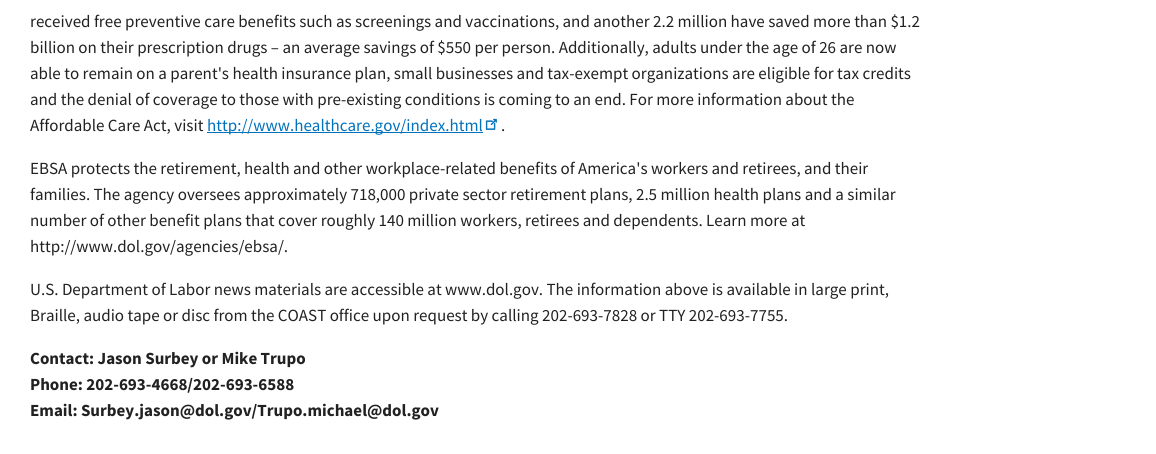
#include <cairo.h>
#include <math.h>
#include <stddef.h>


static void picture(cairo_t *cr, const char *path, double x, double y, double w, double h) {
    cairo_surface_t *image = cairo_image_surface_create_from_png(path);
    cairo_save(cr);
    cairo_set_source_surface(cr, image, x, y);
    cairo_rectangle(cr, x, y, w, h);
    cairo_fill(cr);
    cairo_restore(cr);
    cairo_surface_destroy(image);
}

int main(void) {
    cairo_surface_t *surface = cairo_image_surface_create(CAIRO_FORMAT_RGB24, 1156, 454);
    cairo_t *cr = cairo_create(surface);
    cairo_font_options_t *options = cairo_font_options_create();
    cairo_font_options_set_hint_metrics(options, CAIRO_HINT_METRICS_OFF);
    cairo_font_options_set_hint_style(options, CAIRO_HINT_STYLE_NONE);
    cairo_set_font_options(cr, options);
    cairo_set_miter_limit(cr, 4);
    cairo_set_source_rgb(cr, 1, 1, 1);
    cairo_paint(cr);
    cairo_select_font_face(cr, "Source Sans Pro", CAIRO_FONT_SLANT_NORMAL, CAIRO_FONT_WEIGHT_NORMAL);
    cairo_set_font_size(cr, 17);
    cairo_set_source_rgb(cr, 0.129, 0.129, 0.129);
    cairo_move_to(cr, 30, 27);
    cairo_show_text(cr, "received free preventive care benefits such as screenings and vaccinations, and another 2.2 million have saved more than $1.2");
    cairo_move_to(cr, 30, 53);
    cairo_show_text(cr, "billion on their prescription drugs – an average savings of $550 per person. Additionally, adults under the age of 26 are now");
    cairo_move_to(cr, 30, 79);
    cairo_show_text(cr, "able to remain on a parent's health insurance plan, small businesses and tax-exempt organizations are eligible for tax credits");
    cairo_move_to(cr, 30, 105);
    cairo_show_text(cr, "and the denial of coverage to those with pre-existing conditions is coming to an end. For more information about the");
    cairo_move_to(cr, 30, 131);
    cairo_show_text(cr, "Affordable Care Act, visit");
    cairo_set_source_rgb(cr, 0, 0.443, 0.737);
    cairo_rectangle(cr, 207, 132, 276, 1);
    cairo_fill(cr);
    cairo_move_to(cr, 207, 131);
    cairo_show_text(cr, "http://www.healthcare.gov/index.html");
    picture(cr, "img1.png", 485, 118, 12, 12);
    cairo_set_source_rgb(cr, 0.129, 0.129, 0.129);
    cairo_move_to(cr, 501, 131);
    cairo_show_text(cr, ".");
    cairo_move_to(cr, 30, 174);
    cairo_show_text(cr, "EBSA protects the retirement, health and other workplace-related benefits of America's workers and retirees, and their");
    cairo_move_to(cr, 30, 200);
    cairo_show_text(cr, "families. The agency oversees approximately 718,000 private sector retirement plans, 2.5 million health plans and a similar");
    cairo_move_to(cr, 30, 226);
    cairo_show_text(cr, "number of other benefit plans that cover roughly 140 million workers, retirees and dependents. Learn more at");
    cairo_move_to(cr, 30, 252);
    cairo_show_text(cr, "http://www.dol.gov/agencies/ebsa/.");
    cairo_move_to(cr, 30, 295);
    cairo_show_text(cr, "U.S. Department of Labor news materials are accessible at www.dol.gov. The information above is available in large print,");
    cairo_move_to(cr, 30, 321);
    cairo_show_text(cr, "Braille, audio tape or disc from the COAST office upon request by calling 202-693-7828 or TTY 202-693-7755.");
    cairo_select_font_face(cr, "Source Sans Pro", CAIRO_FONT_SLANT_NORMAL, CAIRO_FONT_WEIGHT_BOLD);
    cairo_move_to(cr, 30, 364);
    cairo_show_text(cr, "Contact: Jason Surbey or Mike Trupo");
    cairo_move_to(cr, 30, 390);
    cairo_show_text(cr, "Phone: 202-693-4668/202-693-6588");
    cairo_move_to(cr, 30, 416);
    cairo_show_text(cr, "Email: Surbey.jason@dol.gov/Trupo.michael@dol.gov");
    cairo_surface_write_to_png(surface, "page.png");
    cairo_font_options_destroy(options);
    cairo_destroy(cr);
    cairo_surface_destroy(surface);
    return 0;
}
